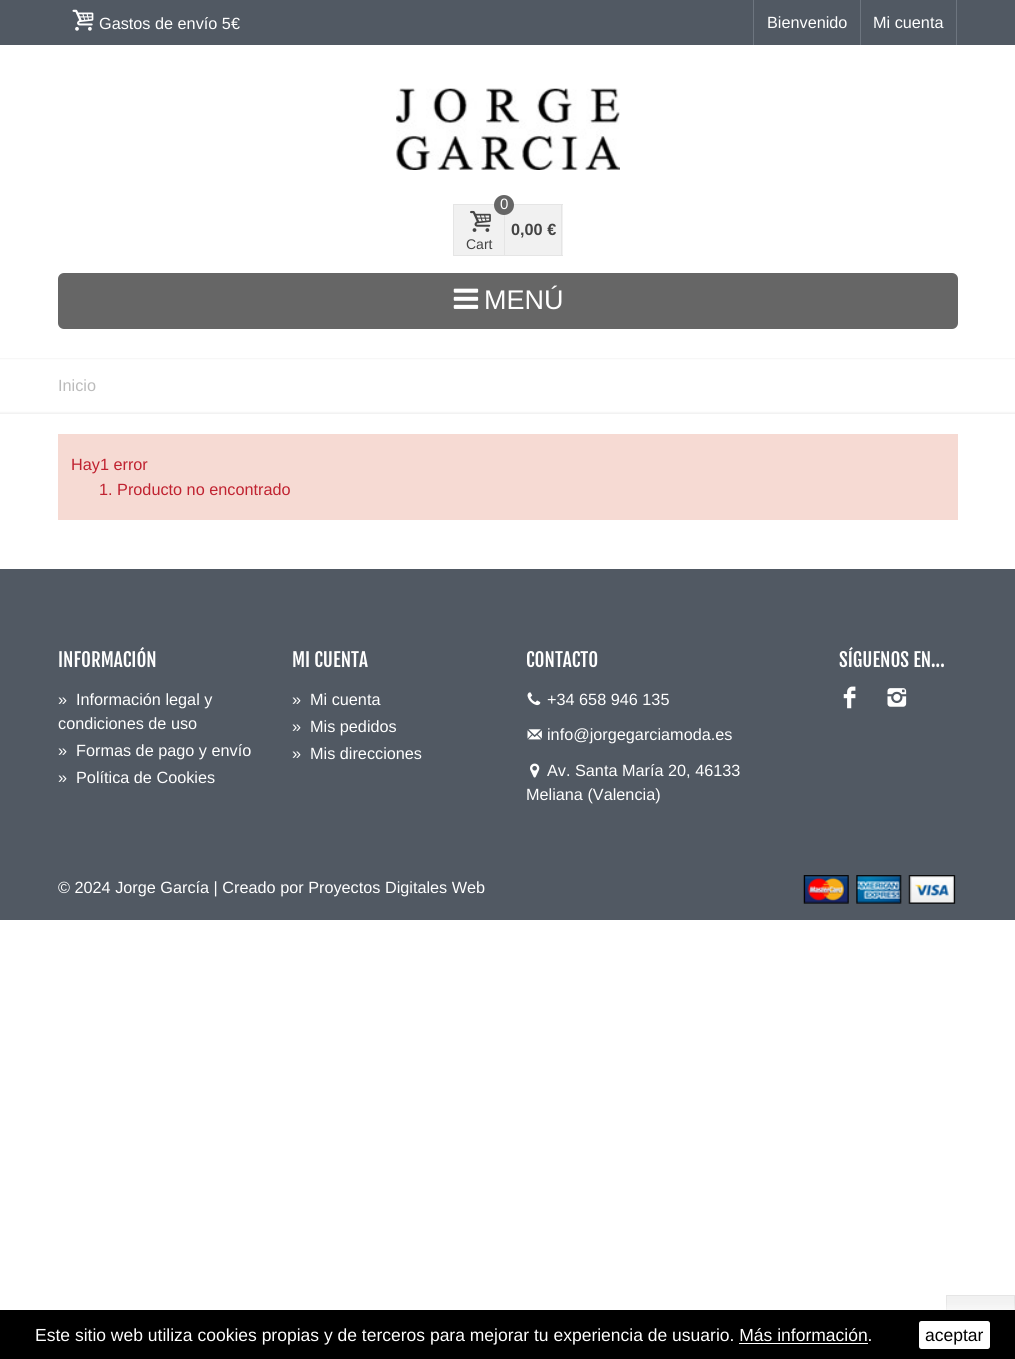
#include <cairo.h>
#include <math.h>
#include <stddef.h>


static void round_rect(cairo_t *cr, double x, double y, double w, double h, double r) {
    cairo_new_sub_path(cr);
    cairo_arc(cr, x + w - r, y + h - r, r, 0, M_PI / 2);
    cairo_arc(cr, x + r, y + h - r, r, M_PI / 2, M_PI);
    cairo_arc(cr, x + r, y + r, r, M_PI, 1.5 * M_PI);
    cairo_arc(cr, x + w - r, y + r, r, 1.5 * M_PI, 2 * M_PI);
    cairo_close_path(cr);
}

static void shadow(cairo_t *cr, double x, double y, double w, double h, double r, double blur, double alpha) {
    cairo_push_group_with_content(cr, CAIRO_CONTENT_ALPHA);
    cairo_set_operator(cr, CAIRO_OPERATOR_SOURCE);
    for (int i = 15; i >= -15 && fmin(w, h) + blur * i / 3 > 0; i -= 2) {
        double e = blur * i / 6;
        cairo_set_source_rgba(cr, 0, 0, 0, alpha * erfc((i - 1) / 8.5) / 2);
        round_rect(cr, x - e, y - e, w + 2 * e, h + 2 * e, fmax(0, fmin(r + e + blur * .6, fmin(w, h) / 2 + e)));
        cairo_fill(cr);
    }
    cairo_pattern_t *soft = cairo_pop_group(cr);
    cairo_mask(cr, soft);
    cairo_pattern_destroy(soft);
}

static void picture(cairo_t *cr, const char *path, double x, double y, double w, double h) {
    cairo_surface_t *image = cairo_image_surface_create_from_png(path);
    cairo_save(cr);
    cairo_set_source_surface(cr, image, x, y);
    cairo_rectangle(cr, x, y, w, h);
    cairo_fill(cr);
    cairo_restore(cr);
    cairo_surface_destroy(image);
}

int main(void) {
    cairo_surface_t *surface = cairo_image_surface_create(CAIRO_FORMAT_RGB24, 1015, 1359);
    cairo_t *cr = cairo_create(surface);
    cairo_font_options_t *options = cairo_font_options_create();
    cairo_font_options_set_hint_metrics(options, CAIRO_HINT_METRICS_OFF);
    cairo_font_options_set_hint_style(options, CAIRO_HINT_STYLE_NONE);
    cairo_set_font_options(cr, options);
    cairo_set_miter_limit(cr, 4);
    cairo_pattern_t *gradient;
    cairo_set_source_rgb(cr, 1, 1, 1);
    cairo_paint(cr);
    cairo_set_source_rgb(cr, 0.318, 0.349, 0.388);
    cairo_rectangle(cr, 0, 0, 1015, 45);
    cairo_fill(cr);
    picture(cr, "img1.png", 72, 9, 22, 22);
    cairo_select_font_face(cr, "Liberation Sans", CAIRO_FONT_SLANT_NORMAL, CAIRO_FONT_WEIGHT_NORMAL);
    cairo_set_font_size(cr, 16.25);
    cairo_set_source_rgb(cr, 1, 1, 1);
    cairo_move_to(cr, 99, 29);
    cairo_show_text(cr, "Gastos de envío 5€");
    cairo_set_source_rgb(cr, 0.427, 0.459, 0.498);
    cairo_rectangle(cr, 860, 0, 1, 45);
    cairo_fill(cr);
    cairo_rectangle(cr, 753, 0, 1, 45);
    cairo_fill(cr);
    cairo_set_source_rgb(cr, 1, 1, 1);
    cairo_move_to(cr, 767, 28);
    cairo_show_text(cr, "Bienvenido");
    cairo_set_source_rgb(cr, 0.427, 0.459, 0.498);
    cairo_rectangle(cr, 956, 0, 1, 45);
    cairo_fill(cr);
    cairo_set_source_rgb(cr, 1, 1, 1);
    cairo_move_to(cr, 873, 28);
    cairo_show_text(cr, "Mi cuenta");
    picture(cr, "img2.png", 396, 88, 224, 82);
    cairo_set_source_rgb(cr, 0.945, 0.945, 0.945);
    cairo_rectangle(cr, 453.5, 204.5, 51, 51);
    cairo_fill_preserve(cr);
    cairo_set_source_rgb(cr, 0.898, 0.898, 0.898);
    cairo_set_line_width(cr, 1);
    cairo_stroke(cr);
    cairo_set_source_rgb(cr, 0.945, 0.945, 0.945);
    cairo_rectangle(cr, 505, 205, 58, 50);
    cairo_fill(cr);
    cairo_set_source_rgb(cr, 0.898, 0.898, 0.898);
    cairo_rectangle(cr, 505, 204, 58, 1);
    cairo_fill(cr);
    cairo_set_source_rgb(cr, 0.4, 0.4, 0.4);
    cairo_arc(cr, 504, 205, 10, 0, 2 * M_PI);
    cairo_fill(cr);
    cairo_set_font_size(cr, 15);
    cairo_set_source_rgb(cr, 1, 1, 1);
    cairo_move_to(cr, 500, 209);
    cairo_show_text(cr, "0");
    picture(cr, "img3.png", 470, 210, 21, 22);
    cairo_set_font_size(cr, 14);
    cairo_set_source_rgb(cr, 0.267, 0.267, 0.267);
    cairo_move_to(cr, 466, 249);
    cairo_show_text(cr, "Cart");
    cairo_set_source_rgb(cr, 0.898, 0.898, 0.898);
    cairo_rectangle(cr, 561, 204, 1, 52);
    cairo_fill(cr);
    cairo_rectangle(cr, 505, 255, 58, 1);
    cairo_fill(cr);
    cairo_select_font_face(cr, "Liberation Sans", CAIRO_FONT_SLANT_NORMAL, CAIRO_FONT_WEIGHT_BOLD);
    cairo_set_font_size(cr, 16.25);
    cairo_set_source_rgb(cr, 0.267, 0.267, 0.267);
    cairo_move_to(cr, 511, 235);
    cairo_show_text(cr, "0,00 €");
    cairo_set_source_rgb(cr, 0.4, 0.4, 0.4);
    round_rect(cr, 58, 273, 900, 56, 6);
    cairo_fill(cr);
    picture(cr, "img4.png", 453, 288, 26, 21);
    cairo_select_font_face(cr, "Liberation Sans", CAIRO_FONT_SLANT_NORMAL, CAIRO_FONT_WEIGHT_NORMAL);
    cairo_set_font_size(cr, 27);
    cairo_set_source_rgb(cr, 1, 1, 1);
    cairo_move_to(cr, 484, 309);
    cairo_show_text(cr, "MENÚ");
    gradient = cairo_pattern_create_linear(508, 357, 508, 414);
    cairo_pattern_add_color_stop_rgba(gradient, 0, 0.937, 0.937, 0.937, 1);
    cairo_pattern_add_color_stop_rgba(gradient, 0.05, 1, 1, 1, 1);
    cairo_pattern_add_color_stop_rgba(gradient, 0.95, 1, 1, 1, 1);
    cairo_pattern_add_color_stop_rgba(gradient, 1, 0.937, 0.937, 0.937, 1);
    cairo_set_source(cr, gradient);
    cairo_pattern_destroy(gradient);
    cairo_rectangle(cr, 0, 358, 1015, 56);
    cairo_fill(cr);
    cairo_set_font_size(cr, 16.25);
    cairo_set_source_rgb(cr, 0.733, 0.733, 0.733);
    cairo_move_to(cr, 58, 391);
    cairo_show_text(cr, "Inicio");
    cairo_set_source_rgb(cr, 0.961, 0.855, 0.827);
    cairo_rectangle(cr, 58, 434, 900, 86);
    cairo_fill(cr);
    cairo_set_source_rgb(cr, 0.753, 0.133, 0.188);
    cairo_move_to(cr, 71, 470);
    cairo_show_text(cr, "Hay1 error");
    cairo_move_to(cr, 99, 495);
    cairo_show_text(cr, "1. Producto no encontrado");
    cairo_set_source_rgb(cr, 0.318, 0.349, 0.388);
    cairo_rectangle(cr, 0, 569, 1015, 351);
    cairo_fill(cr);
    cairo_select_font_face(cr, "Fjalla One", CAIRO_FONT_SLANT_NORMAL, CAIRO_FONT_WEIGHT_NORMAL);
    cairo_set_font_size(cr, 19);
    cairo_set_source_rgb(cr, 1, 1, 1);
    cairo_move_to(cr, 58, 667);
    cairo_show_text(cr, "INFORMACIÓN");
    cairo_select_font_face(cr, "Liberation Sans", CAIRO_FONT_SLANT_NORMAL, CAIRO_FONT_WEIGHT_NORMAL);
    cairo_set_font_size(cr, 16.25);
    cairo_move_to(cr, 58, 705);
    cairo_show_text(cr, "»");
    cairo_move_to(cr, 76, 705);
    cairo_show_text(cr, "Información legal y");
    cairo_move_to(cr, 58, 729);
    cairo_show_text(cr, "condiciones de uso");
    cairo_move_to(cr, 58, 756);
    cairo_show_text(cr, "»");
    cairo_move_to(cr, 76, 756);
    cairo_show_text(cr, "Formas de pago y envío");
    cairo_move_to(cr, 58, 783);
    cairo_show_text(cr, "»");
    cairo_move_to(cr, 76, 783);
    cairo_show_text(cr, "Política de Cookies");
    cairo_select_font_face(cr, "Fjalla One", CAIRO_FONT_SLANT_NORMAL, CAIRO_FONT_WEIGHT_NORMAL);
    cairo_set_font_size(cr, 19);
    cairo_move_to(cr, 292, 667);
    cairo_show_text(cr, "MI CUENTA");
    cairo_select_font_face(cr, "Liberation Sans", CAIRO_FONT_SLANT_NORMAL, CAIRO_FONT_WEIGHT_NORMAL);
    cairo_set_font_size(cr, 16.25);
    cairo_move_to(cr, 292, 705);
    cairo_show_text(cr, "»");
    cairo_move_to(cr, 310, 705);
    cairo_show_text(cr, "Mi cuenta");
    cairo_move_to(cr, 292, 732);
    cairo_show_text(cr, "»");
    cairo_move_to(cr, 310, 732);
    cairo_show_text(cr, "Mis pedidos");
    cairo_move_to(cr, 292, 759);
    cairo_show_text(cr, "»");
    cairo_move_to(cr, 310, 759);
    cairo_show_text(cr, "Mis direcciones");
    cairo_select_font_face(cr, "Fjalla One", CAIRO_FONT_SLANT_NORMAL, CAIRO_FONT_WEIGHT_NORMAL);
    cairo_set_font_size(cr, 19);
    cairo_move_to(cr, 526, 667);
    cairo_show_text(cr, "CONTACTO");
    picture(cr, "img5.png", 527, 692, 14, 14);
    cairo_select_font_face(cr, "Liberation Sans", CAIRO_FONT_SLANT_NORMAL, CAIRO_FONT_WEIGHT_NORMAL);
    cairo_set_font_size(cr, 16.25);
    cairo_move_to(cr, 547, 705);
    cairo_show_text(cr, "+34 658 946 135");
    picture(cr, "img6.png", 527, 729, 15, 11);
    cairo_move_to(cr, 547, 740);
    cairo_show_text(cr, "info@jorgegarciamoda.es");
    picture(cr, "img7.png", 530, 763, 10, 15);
    cairo_move_to(cr, 547, 776);
    cairo_show_text(cr, "Av. Santa María 20, 46133");
    cairo_move_to(cr, 526, 800);
    cairo_show_text(cr, "Meliana (Valencia)");
    cairo_select_font_face(cr, "Fjalla One", CAIRO_FONT_SLANT_NORMAL, CAIRO_FONT_WEIGHT_NORMAL);
    cairo_set_font_size(cr, 19);
    cairo_move_to(cr, 839, 667);
    cairo_show_text(cr, "SÍGUENOS EN...");
    picture(cr, "img8.png", 843, 686, 13, 23);
    picture(cr, "img9.png", 887, 688, 20, 19);
    cairo_select_font_face(cr, "Liberation Sans", CAIRO_FONT_SLANT_NORMAL, CAIRO_FONT_WEIGHT_NORMAL);
    cairo_set_font_size(cr, 16.25);
    cairo_move_to(cr, 58, 893);
    cairo_show_text(cr, "© 2024 Jorge García | Creado por Proyectos Digitales Web");
    picture(cr, "img10.png", 803, 875, 153, 29);
    cairo_set_source_rgb(cr, 0.945, 0.945, 0.945);
    cairo_rectangle(cr, 947, 1296, 67, 14);
    cairo_fill(cr);
    cairo_set_source_rgb(cr, 0.898, 0.898, 0.898);
    cairo_rectangle(cr, 946, 1295, 69, 1);
    cairo_fill(cr);
    cairo_rectangle(cr, 1014, 1295, 1, 15);
    cairo_fill(cr);
    cairo_rectangle(cr, 946, 1296, 1, 14);
    cairo_fill(cr);
    cairo_set_source_rgb(cr, 1, 1, 1);
    shadow(cr, 0, 1310, 1015, 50, 0, 6, 1);
    cairo_set_source_rgb(cr, 0, 0, 0);
    cairo_rectangle(cr, 0, 1310, 1015, 49);
    cairo_fill(cr);
    cairo_set_font_size(cr, 17.5);
    cairo_set_source_rgb(cr, 1, 1, 1);
    cairo_move_to(cr, 35, 1341);
    cairo_show_text(cr, "Este sitio web utiliza cookies propias y de terceros para mejorar tu experiencia de usuario. Más información.");
    cairo_rectangle(cr, 739, 1343, 129, 1);
    cairo_fill(cr);
    round_rect(cr, 919, 1321, 71, 28, 2.5);
    cairo_fill(cr);
    cairo_set_source_rgb(cr, 0, 0, 0);
    cairo_move_to(cr, 925, 1341);
    cairo_show_text(cr, "aceptar");
    cairo_surface_write_to_png(surface, "page.png");
    cairo_font_options_destroy(options);
    cairo_destroy(cr);
    cairo_surface_destroy(surface);
    return 0;
}
